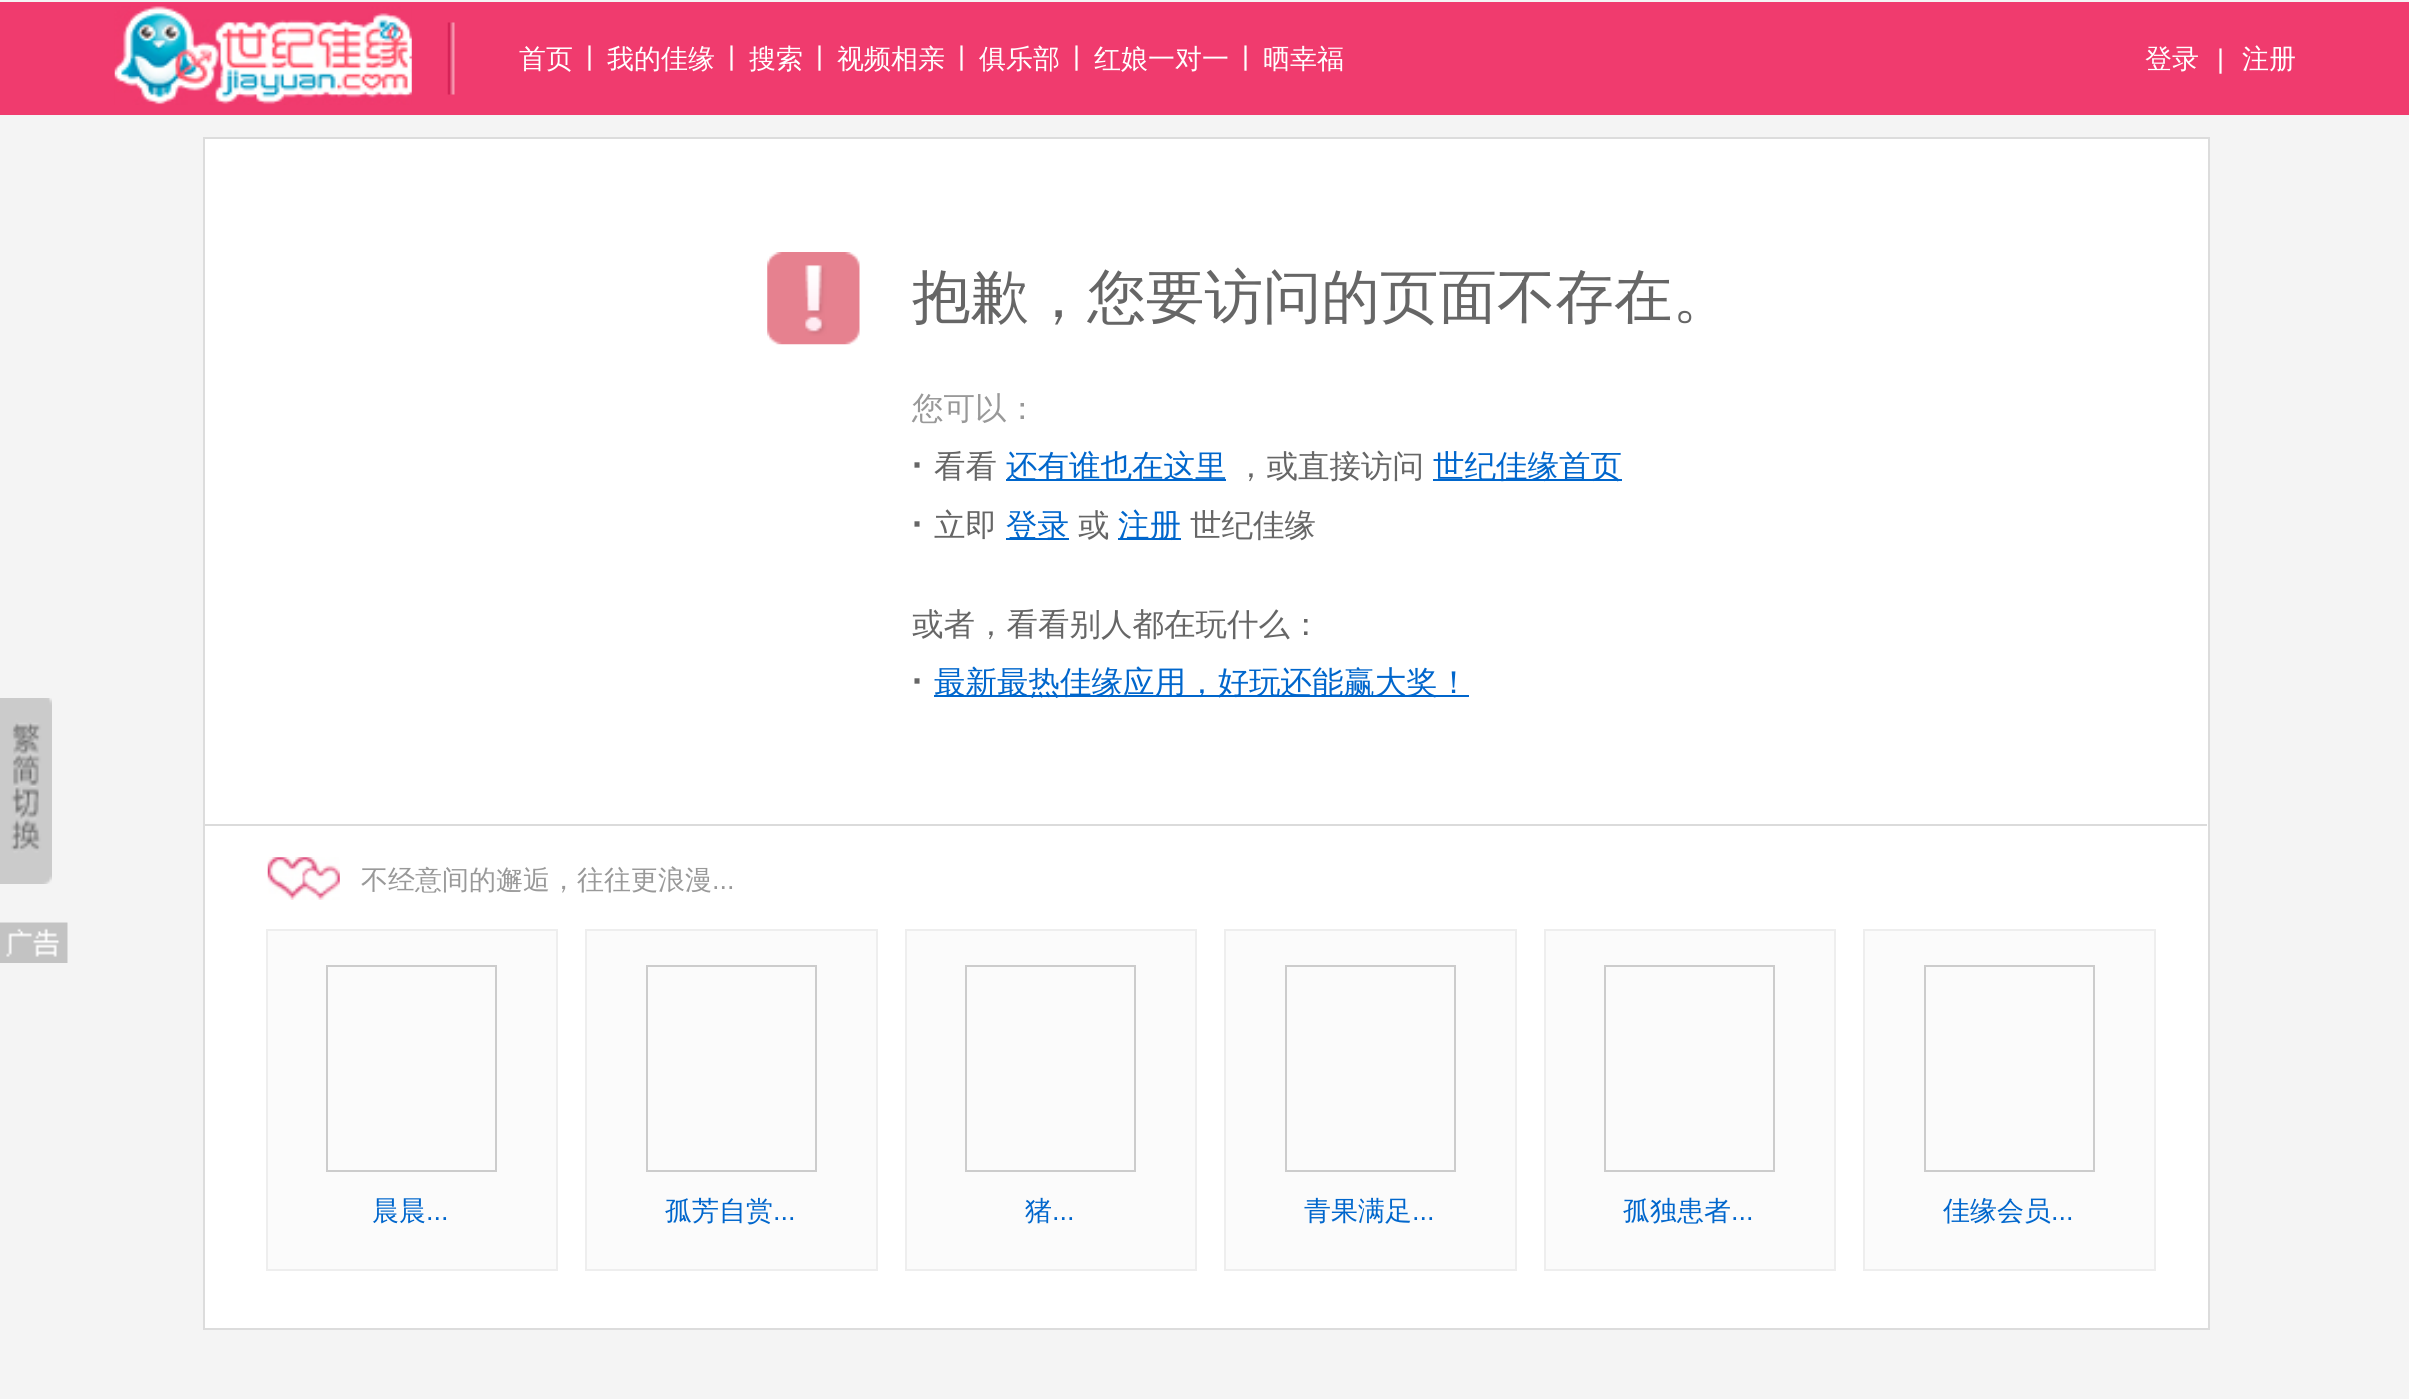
#include <cairo.h>
#include <math.h>
#include <stddef.h>


static void picture(cairo_t *cr, const char *path, double x, double y, double w, double h) {
    cairo_surface_t *image = cairo_image_surface_create_from_png(path);
    cairo_save(cr);
    cairo_set_source_surface(cr, image, x, y);
    cairo_rectangle(cr, x, y, w, h);
    cairo_fill(cr);
    cairo_restore(cr);
    cairo_surface_destroy(image);
}

int main(void) {
    cairo_surface_t *surface = cairo_image_surface_create(CAIRO_FORMAT_RGB24, 2409, 1399);
    cairo_t *cr = cairo_create(surface);
    cairo_font_options_t *options = cairo_font_options_create();
    cairo_font_options_set_hint_metrics(options, CAIRO_HINT_METRICS_OFF);
    cairo_font_options_set_hint_style(options, CAIRO_HINT_STYLE_NONE);
    cairo_set_font_options(cr, options);
    cairo_set_miter_limit(cr, 4);
    cairo_set_source_rgb(cr, 0.957, 0.957, 0.957);
    cairo_paint(cr);
    cairo_set_source_rgb(cr, 0.941, 0.231, 0.431);
    cairo_rectangle(cr, 0, 2, 2409, 113);
    cairo_fill(cr);
    picture(cr, "img1.png", 114, 6, 298, 99);
    picture(cr, "img2.png", 447, 22, 8, 73);
    cairo_select_font_face(cr, "WenQuanYi Zen Hei Medium", CAIRO_FONT_SLANT_NORMAL, CAIRO_FONT_WEIGHT_NORMAL);
    cairo_set_font_size(cr, 27);
    cairo_set_source_rgb(cr, 1, 1, 1);
    cairo_move_to(cr, 519, 68);
    cairo_show_text(cr, "首页");
    cairo_select_font_face(cr, "Liberation Sans", CAIRO_FONT_SLANT_NORMAL, CAIRO_FONT_WEIGHT_NORMAL);
    cairo_move_to(cr, 586, 65);
    cairo_show_text(cr, "|");
    cairo_select_font_face(cr, "WenQuanYi Zen Hei Medium", CAIRO_FONT_SLANT_NORMAL, CAIRO_FONT_WEIGHT_NORMAL);
    cairo_move_to(cr, 607, 68);
    cairo_show_text(cr, "我的佳缘");
    cairo_select_font_face(cr, "Liberation Sans", CAIRO_FONT_SLANT_NORMAL, CAIRO_FONT_WEIGHT_NORMAL);
    cairo_move_to(cr, 728, 65);
    cairo_show_text(cr, "|");
    cairo_select_font_face(cr, "WenQuanYi Zen Hei Medium", CAIRO_FONT_SLANT_NORMAL, CAIRO_FONT_WEIGHT_NORMAL);
    cairo_move_to(cr, 749, 68);
    cairo_show_text(cr, "搜索");
    cairo_select_font_face(cr, "Liberation Sans", CAIRO_FONT_SLANT_NORMAL, CAIRO_FONT_WEIGHT_NORMAL);
    cairo_move_to(cr, 816, 65);
    cairo_show_text(cr, "|");
    cairo_select_font_face(cr, "WenQuanYi Zen Hei Medium", CAIRO_FONT_SLANT_NORMAL, CAIRO_FONT_WEIGHT_NORMAL);
    cairo_move_to(cr, 837, 68);
    cairo_show_text(cr, "视频相亲");
    cairo_select_font_face(cr, "Liberation Sans", CAIRO_FONT_SLANT_NORMAL, CAIRO_FONT_WEIGHT_NORMAL);
    cairo_move_to(cr, 958, 65);
    cairo_show_text(cr, "|");
    cairo_select_font_face(cr, "WenQuanYi Zen Hei Medium", CAIRO_FONT_SLANT_NORMAL, CAIRO_FONT_WEIGHT_NORMAL);
    cairo_move_to(cr, 979, 68);
    cairo_show_text(cr, "俱乐部");
    cairo_select_font_face(cr, "Liberation Sans", CAIRO_FONT_SLANT_NORMAL, CAIRO_FONT_WEIGHT_NORMAL);
    cairo_move_to(cr, 1073, 65);
    cairo_show_text(cr, "|");
    cairo_select_font_face(cr, "WenQuanYi Zen Hei Medium", CAIRO_FONT_SLANT_NORMAL, CAIRO_FONT_WEIGHT_NORMAL);
    cairo_move_to(cr, 1094, 68);
    cairo_show_text(cr, "红娘一对一");
    cairo_select_font_face(cr, "Liberation Sans", CAIRO_FONT_SLANT_NORMAL, CAIRO_FONT_WEIGHT_NORMAL);
    cairo_move_to(cr, 1242, 65);
    cairo_show_text(cr, "|");
    cairo_select_font_face(cr, "WenQuanYi Zen Hei Medium", CAIRO_FONT_SLANT_NORMAL, CAIRO_FONT_WEIGHT_NORMAL);
    cairo_move_to(cr, 1263, 68);
    cairo_show_text(cr, "晒幸福");
    cairo_move_to(cr, 2145, 68);
    cairo_show_text(cr, "登录");
    cairo_select_font_face(cr, "Liberation Sans", CAIRO_FONT_SLANT_NORMAL, CAIRO_FONT_WEIGHT_NORMAL);
    cairo_move_to(cr, 2217, 68);
    cairo_show_text(cr, "|");
    cairo_select_font_face(cr, "WenQuanYi Zen Hei Medium", CAIRO_FONT_SLANT_NORMAL, CAIRO_FONT_WEIGHT_NORMAL);
    cairo_move_to(cr, 2242, 68);
    cairo_show_text(cr, "注册");
    picture(cr, "img3.png", 0, 698, 52, 186);
    picture(cr, "img4.png", 0, 922, 68, 41);
    cairo_rectangle(cr, 204, 138, 2005, 1191);
    cairo_fill_preserve(cr);
    cairo_set_source_rgb(cr, 0.863, 0.863, 0.863);
    cairo_stroke(cr);
    picture(cr, "img5.png", 767, 252, 93, 93);
    cairo_set_font_size(cr, 58.5);
    cairo_set_source_rgb(cr, 0.4, 0.4, 0.4);
    cairo_move_to(cr, 912, 317);
    cairo_show_text(cr, "抱歉，您要访问的页面不存在。");
    cairo_set_font_size(cr, 31.5);
    cairo_set_source_rgb(cr, 0.6, 0.6, 0.6);
    cairo_move_to(cr, 912, 419);
    cairo_show_text(cr, "您可以：");
    cairo_select_font_face(cr, "Liberation Sans", CAIRO_FONT_SLANT_NORMAL, CAIRO_FONT_WEIGHT_BOLD);
    cairo_set_font_size(cr, 36);
    cairo_set_source_rgb(cr, 0.4, 0.4, 0.4);
    cairo_move_to(cr, 912, 477);
    cairo_show_text(cr, "·");
    cairo_select_font_face(cr, "WenQuanYi Zen Hei Medium", CAIRO_FONT_SLANT_NORMAL, CAIRO_FONT_WEIGHT_NORMAL);
    cairo_set_font_size(cr, 31.5);
    cairo_move_to(cr, 934, 477);
    cairo_show_text(cr, "看看");
    cairo_set_source_rgb(cr, 0, 0.4, 0.8);
    cairo_rectangle(cr, 1006, 479, 220, 2);
    cairo_fill(cr);
    cairo_move_to(cr, 1006, 477);
    cairo_show_text(cr, "还有谁也在这里");
    cairo_set_source_rgb(cr, 0.4, 0.4, 0.4);
    cairo_move_to(cr, 1235, 477);
    cairo_show_text(cr, "，或直接访问");
    cairo_set_source_rgb(cr, 0, 0.4, 0.8);
    cairo_rectangle(cr, 1433, 479, 189, 2);
    cairo_fill(cr);
    cairo_move_to(cr, 1433, 477);
    cairo_show_text(cr, "世纪佳缘首页");
    cairo_select_font_face(cr, "Liberation Sans", CAIRO_FONT_SLANT_NORMAL, CAIRO_FONT_WEIGHT_BOLD);
    cairo_set_font_size(cr, 36);
    cairo_set_source_rgb(cr, 0.4, 0.4, 0.4);
    cairo_move_to(cr, 912, 536);
    cairo_show_text(cr, "·");
    cairo_select_font_face(cr, "WenQuanYi Zen Hei Medium", CAIRO_FONT_SLANT_NORMAL, CAIRO_FONT_WEIGHT_NORMAL);
    cairo_set_font_size(cr, 31.5);
    cairo_move_to(cr, 934, 536);
    cairo_show_text(cr, "立即");
    cairo_set_source_rgb(cr, 0, 0.4, 0.8);
    cairo_rectangle(cr, 1006, 538, 63, 2);
    cairo_fill(cr);
    cairo_move_to(cr, 1006, 536);
    cairo_show_text(cr, "登录");
    cairo_set_source_rgb(cr, 0.4, 0.4, 0.4);
    cairo_move_to(cr, 1078, 536);
    cairo_show_text(cr, "或");
    cairo_set_source_rgb(cr, 0, 0.4, 0.8);
    cairo_rectangle(cr, 1118, 538, 63, 2);
    cairo_fill(cr);
    cairo_move_to(cr, 1118, 536);
    cairo_show_text(cr, "注册");
    cairo_set_source_rgb(cr, 0.4, 0.4, 0.4);
    cairo_move_to(cr, 1190, 536);
    cairo_show_text(cr, "世纪佳缘");
    cairo_move_to(cr, 912, 635);
    cairo_show_text(cr, "或者，看看别人都在玩什么：");
    cairo_select_font_face(cr, "Liberation Sans", CAIRO_FONT_SLANT_NORMAL, CAIRO_FONT_WEIGHT_BOLD);
    cairo_set_font_size(cr, 36);
    cairo_move_to(cr, 912, 693);
    cairo_show_text(cr, "·");
    cairo_set_source_rgb(cr, 0, 0.4, 0.8);
    cairo_rectangle(cr, 934, 695, 535, 2);
    cairo_fill(cr);
    cairo_select_font_face(cr, "WenQuanYi Zen Hei Medium", CAIRO_FONT_SLANT_NORMAL, CAIRO_FONT_WEIGHT_NORMAL);
    cairo_set_font_size(cr, 31.5);
    cairo_move_to(cr, 934, 693);
    cairo_show_text(cr, "最新最热佳缘应用，好玩还能赢大奖！");
    cairo_set_source_rgb(cr, 0.859, 0.859, 0.859);
    cairo_rectangle(cr, 205, 824, 2002, 2);
    cairo_fill(cr);
    picture(cr, "img6.png", 267, 857, 73, 43);
    cairo_set_font_size(cr, 27);
    cairo_set_source_rgb(cr, 0.6, 0.6, 0.6);
    cairo_move_to(cr, 361, 889);
    cairo_show_text(cr, "不经意间的邂逅，往往更浪漫");
    cairo_select_font_face(cr, "Liberation Sans", CAIRO_FONT_SLANT_NORMAL, CAIRO_FONT_WEIGHT_NORMAL);
    cairo_move_to(cr, 712, 889);
    cairo_show_text(cr, "...");
    cairo_set_source_rgb(cr, 0.984, 0.984, 0.984);
    cairo_rectangle(cr, 267, 930, 290, 340);
    cairo_fill_preserve(cr);
    cairo_set_source_rgb(cr, 0.933, 0.933, 0.933);
    cairo_stroke(cr);
    cairo_rectangle(cr, 327, 966, 169, 205);
    cairo_set_source_rgb(cr, 0.8, 0.8, 0.8);
    cairo_stroke(cr);
    cairo_select_font_face(cr, "WenQuanYi Zen Hei Medium", CAIRO_FONT_SLANT_NORMAL, CAIRO_FONT_WEIGHT_NORMAL);
    cairo_set_source_rgb(cr, 0, 0.4, 0.8);
    cairo_move_to(cr, 372, 1220);
    cairo_show_text(cr, "晨晨");
    cairo_select_font_face(cr, "Liberation Sans", CAIRO_FONT_SLANT_NORMAL, CAIRO_FONT_WEIGHT_NORMAL);
    cairo_move_to(cr, 426, 1220);
    cairo_show_text(cr, "...");
    cairo_set_source_rgb(cr, 0.984, 0.984, 0.984);
    cairo_rectangle(cr, 586, 930, 291, 340);
    cairo_fill_preserve(cr);
    cairo_set_source_rgb(cr, 0.933, 0.933, 0.933);
    cairo_stroke(cr);
    cairo_rectangle(cr, 647, 966, 169, 205);
    cairo_set_source_rgb(cr, 0.8, 0.8, 0.8);
    cairo_stroke(cr);
    cairo_select_font_face(cr, "WenQuanYi Zen Hei Medium", CAIRO_FONT_SLANT_NORMAL, CAIRO_FONT_WEIGHT_NORMAL);
    cairo_set_source_rgb(cr, 0, 0.4, 0.8);
    cairo_move_to(cr, 665, 1220);
    cairo_show_text(cr, "孤芳自赏");
    cairo_select_font_face(cr, "Liberation Sans", CAIRO_FONT_SLANT_NORMAL, CAIRO_FONT_WEIGHT_NORMAL);
    cairo_move_to(cr, 773, 1220);
    cairo_show_text(cr, "...");
    cairo_set_source_rgb(cr, 0.984, 0.984, 0.984);
    cairo_rectangle(cr, 906, 930, 290, 340);
    cairo_fill_preserve(cr);
    cairo_set_source_rgb(cr, 0.933, 0.933, 0.933);
    cairo_stroke(cr);
    cairo_rectangle(cr, 966, 966, 169, 205);
    cairo_set_source_rgb(cr, 0.8, 0.8, 0.8);
    cairo_stroke(cr);
    cairo_select_font_face(cr, "WenQuanYi Zen Hei Medium", CAIRO_FONT_SLANT_NORMAL, CAIRO_FONT_WEIGHT_NORMAL);
    cairo_set_source_rgb(cr, 0, 0.4, 0.8);
    cairo_move_to(cr, 1025, 1220);
    cairo_show_text(cr, "猪");
    cairo_select_font_face(cr, "Liberation Sans", CAIRO_FONT_SLANT_NORMAL, CAIRO_FONT_WEIGHT_NORMAL);
    cairo_move_to(cr, 1052, 1220);
    cairo_show_text(cr, "...");
    cairo_set_source_rgb(cr, 0.984, 0.984, 0.984);
    cairo_rectangle(cr, 1225, 930, 291, 340);
    cairo_fill_preserve(cr);
    cairo_set_source_rgb(cr, 0.933, 0.933, 0.933);
    cairo_stroke(cr);
    cairo_rectangle(cr, 1286, 966, 169, 205);
    cairo_set_source_rgb(cr, 0.8, 0.8, 0.8);
    cairo_stroke(cr);
    cairo_select_font_face(cr, "WenQuanYi Zen Hei Medium", CAIRO_FONT_SLANT_NORMAL, CAIRO_FONT_WEIGHT_NORMAL);
    cairo_set_source_rgb(cr, 0, 0.4, 0.8);
    cairo_move_to(cr, 1304, 1220);
    cairo_show_text(cr, "青果满足");
    cairo_select_font_face(cr, "Liberation Sans", CAIRO_FONT_SLANT_NORMAL, CAIRO_FONT_WEIGHT_NORMAL);
    cairo_move_to(cr, 1412, 1220);
    cairo_show_text(cr, "...");
    cairo_set_source_rgb(cr, 0.984, 0.984, 0.984);
    cairo_rectangle(cr, 1545, 930, 290, 340);
    cairo_fill_preserve(cr);
    cairo_set_source_rgb(cr, 0.933, 0.933, 0.933);
    cairo_stroke(cr);
    cairo_rectangle(cr, 1605, 966, 169, 205);
    cairo_set_source_rgb(cr, 0.8, 0.8, 0.8);
    cairo_stroke(cr);
    cairo_select_font_face(cr, "WenQuanYi Zen Hei Medium", CAIRO_FONT_SLANT_NORMAL, CAIRO_FONT_WEIGHT_NORMAL);
    cairo_set_source_rgb(cr, 0, 0.4, 0.8);
    cairo_move_to(cr, 1623, 1220);
    cairo_show_text(cr, "孤独患者");
    cairo_select_font_face(cr, "Liberation Sans", CAIRO_FONT_SLANT_NORMAL, CAIRO_FONT_WEIGHT_NORMAL);
    cairo_move_to(cr, 1731, 1220);
    cairo_show_text(cr, "...");
    cairo_set_source_rgb(cr, 0.984, 0.984, 0.984);
    cairo_rectangle(cr, 1864, 930, 291, 340);
    cairo_fill_preserve(cr);
    cairo_set_source_rgb(cr, 0.933, 0.933, 0.933);
    cairo_stroke(cr);
    cairo_rectangle(cr, 1925, 966, 169, 205);
    cairo_set_source_rgb(cr, 0.8, 0.8, 0.8);
    cairo_stroke(cr);
    cairo_select_font_face(cr, "WenQuanYi Zen Hei Medium", CAIRO_FONT_SLANT_NORMAL, CAIRO_FONT_WEIGHT_NORMAL);
    cairo_set_source_rgb(cr, 0, 0.4, 0.8);
    cairo_move_to(cr, 1943, 1220);
    cairo_show_text(cr, "佳缘会员");
    cairo_select_font_face(cr, "Liberation Sans", CAIRO_FONT_SLANT_NORMAL, CAIRO_FONT_WEIGHT_NORMAL);
    cairo_move_to(cr, 2051, 1220);
    cairo_show_text(cr, "...");
    cairo_surface_write_to_png(surface, "page.png");
    cairo_font_options_destroy(options);
    cairo_destroy(cr);
    cairo_surface_destroy(surface);
    return 0;
}
